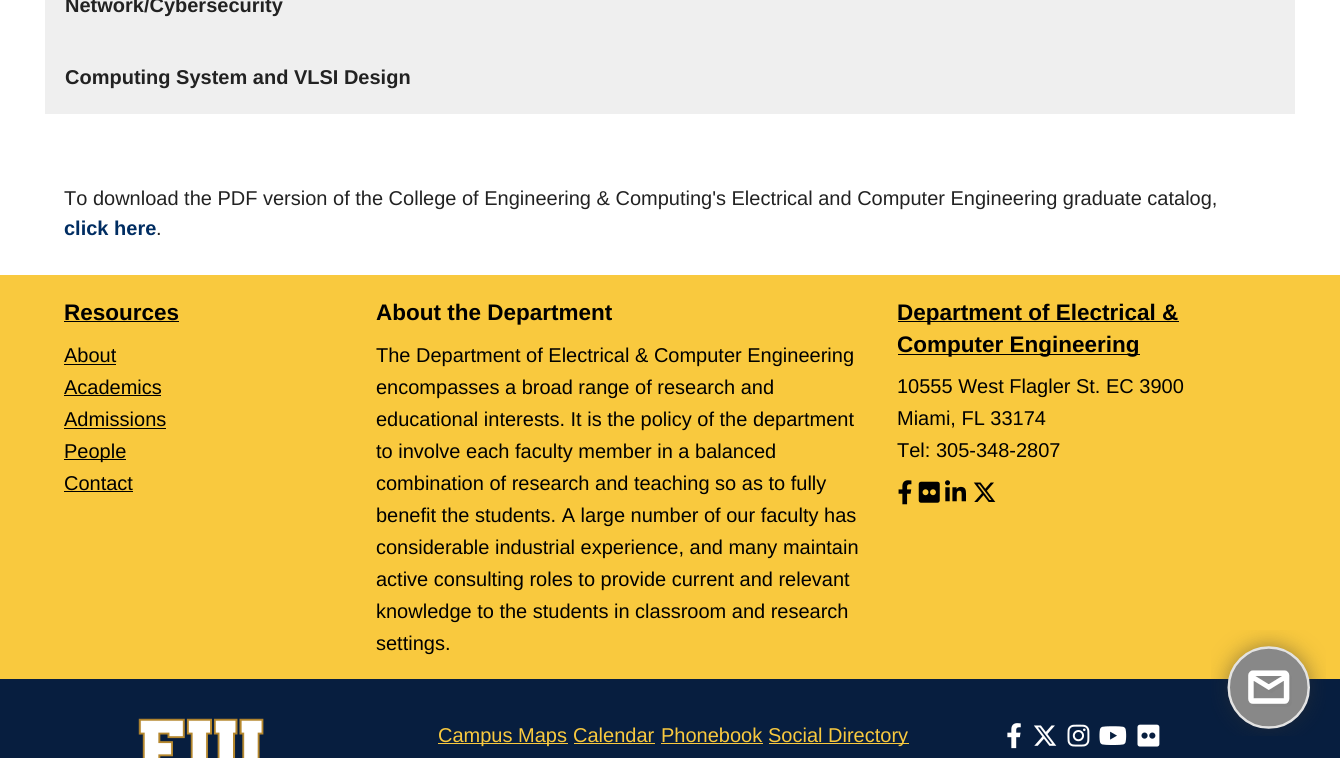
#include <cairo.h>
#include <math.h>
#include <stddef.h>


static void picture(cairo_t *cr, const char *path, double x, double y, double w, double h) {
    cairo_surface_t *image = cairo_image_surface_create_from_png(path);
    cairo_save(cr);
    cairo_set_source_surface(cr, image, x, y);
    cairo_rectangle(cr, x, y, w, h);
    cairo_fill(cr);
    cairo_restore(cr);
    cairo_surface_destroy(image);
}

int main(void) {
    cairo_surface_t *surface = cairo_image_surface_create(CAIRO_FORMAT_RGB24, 1340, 758);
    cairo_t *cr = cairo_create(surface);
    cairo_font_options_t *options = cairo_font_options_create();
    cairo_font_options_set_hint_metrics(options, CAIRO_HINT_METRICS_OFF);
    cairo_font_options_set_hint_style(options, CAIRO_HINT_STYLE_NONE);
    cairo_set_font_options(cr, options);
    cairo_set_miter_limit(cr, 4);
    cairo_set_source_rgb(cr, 1, 1, 1);
    cairo_paint(cr);
    cairo_set_source_rgb(cr, 0.937, 0.937, 0.937);
    cairo_rectangle(cr, 45, 0, 1250, 114);
    cairo_fill(cr);
    cairo_select_font_face(cr, "Liberation Sans", CAIRO_FONT_SLANT_NORMAL, CAIRO_FONT_WEIGHT_BOLD);
    cairo_set_font_size(cr, 20);
    cairo_set_source_rgb(cr, 0.133, 0.133, 0.133);
    cairo_move_to(cr, 65, 12);
    cairo_show_text(cr, "Network/Cybersecurity");
    cairo_move_to(cr, 65, 84);
    cairo_show_text(cr, "Computing System and VLSI Design");
    cairo_select_font_face(cr, "Liberation Sans", CAIRO_FONT_SLANT_NORMAL, CAIRO_FONT_WEIGHT_NORMAL);
    cairo_move_to(cr, 64, 205);
    cairo_show_text(cr, "To download the PDF version of the College of Engineering & Computing's Electrical and Computer Engineering graduate catalog,");
    cairo_select_font_face(cr, "Liberation Sans", CAIRO_FONT_SLANT_NORMAL, CAIRO_FONT_WEIGHT_BOLD);
    cairo_set_source_rgb(cr, 0, 0.176, 0.384);
    cairo_move_to(cr, 64, 235);
    cairo_show_text(cr, "click here");
    cairo_select_font_face(cr, "Liberation Sans", CAIRO_FONT_SLANT_NORMAL, CAIRO_FONT_WEIGHT_NORMAL);
    cairo_set_source_rgb(cr, 0.133, 0.133, 0.133);
    cairo_move_to(cr, 156, 235);
    cairo_show_text(cr, ".");
    cairo_set_source_rgb(cr, 0.973, 0.788, 0.243);
    cairo_rectangle(cr, 0, 275, 1340, 404);
    cairo_fill(cr);
    cairo_select_font_face(cr, "Liberation Sans", CAIRO_FONT_SLANT_NORMAL, CAIRO_FONT_WEIGHT_BOLD);
    cairo_set_font_size(cr, 22.5);
    cairo_set_source_rgb(cr, 0, 0, 0);
    cairo_move_to(cr, 64, 320);
    cairo_show_text(cr, "Resources");
    cairo_rectangle(cr, 64, 321, 115, 1);
    cairo_fill(cr);
    cairo_select_font_face(cr, "Liberation Sans", CAIRO_FONT_SLANT_NORMAL, CAIRO_FONT_WEIGHT_NORMAL);
    cairo_set_font_size(cr, 20);
    cairo_move_to(cr, 64, 362);
    cairo_show_text(cr, "About");
    cairo_rectangle(cr, 64, 364, 52, 1);
    cairo_fill(cr);
    cairo_move_to(cr, 64, 394);
    cairo_show_text(cr, "Academics");
    cairo_rectangle(cr, 64, 395, 97, 1);
    cairo_fill(cr);
    cairo_move_to(cr, 64, 426);
    cairo_show_text(cr, "Admissions");
    cairo_rectangle(cr, 64, 428, 102, 1);
    cairo_fill(cr);
    cairo_rectangle(cr, 64, 459, 62, 1);
    cairo_fill(cr);
    cairo_move_to(cr, 64, 458);
    cairo_show_text(cr, "People");
    cairo_move_to(cr, 64, 490);
    cairo_show_text(cr, "Contact");
    cairo_rectangle(cr, 64, 491, 69, 1);
    cairo_fill(cr);
    cairo_select_font_face(cr, "Liberation Sans", CAIRO_FONT_SLANT_NORMAL, CAIRO_FONT_WEIGHT_BOLD);
    cairo_set_font_size(cr, 22.5);
    cairo_move_to(cr, 376, 320);
    cairo_show_text(cr, "About the Department");
    cairo_select_font_face(cr, "Liberation Sans", CAIRO_FONT_SLANT_NORMAL, CAIRO_FONT_WEIGHT_NORMAL);
    cairo_set_font_size(cr, 20);
    cairo_move_to(cr, 376, 362);
    cairo_show_text(cr, "The Department of Electrical & Computer Engineering");
    cairo_move_to(cr, 376, 394);
    cairo_show_text(cr, "encompasses a broad range of research and");
    cairo_move_to(cr, 376, 426);
    cairo_show_text(cr, "educational interests. It is the policy of the department");
    cairo_move_to(cr, 376, 458);
    cairo_show_text(cr, "to involve each faculty member in a balanced");
    cairo_move_to(cr, 376, 490);
    cairo_show_text(cr, "combination of research and teaching so as to fully");
    cairo_move_to(cr, 376, 522);
    cairo_show_text(cr, "benefit the students. A large number of our faculty has");
    cairo_move_to(cr, 376, 554);
    cairo_show_text(cr, "considerable industrial experience, and many maintain");
    cairo_move_to(cr, 376, 586);
    cairo_show_text(cr, "active consulting roles to provide current and relevant");
    cairo_move_to(cr, 376, 618);
    cairo_show_text(cr, "knowledge to the students in classroom and research");
    cairo_move_to(cr, 376, 650);
    cairo_show_text(cr, "settings.");
    cairo_rectangle(cr, 898, 321, 281, 1);
    cairo_fill(cr);
    cairo_select_font_face(cr, "Liberation Sans", CAIRO_FONT_SLANT_NORMAL, CAIRO_FONT_WEIGHT_BOLD);
    cairo_set_font_size(cr, 22.5);
    cairo_move_to(cr, 897, 320);
    cairo_show_text(cr, "Department of Electrical &");
    cairo_rectangle(cr, 898, 354, 242, 1);
    cairo_fill(cr);
    cairo_move_to(cr, 897, 352);
    cairo_show_text(cr, "Computer Engineering");
    cairo_select_font_face(cr, "Liberation Sans", CAIRO_FONT_SLANT_NORMAL, CAIRO_FONT_WEIGHT_NORMAL);
    cairo_set_font_size(cr, 20);
    cairo_move_to(cr, 897, 393);
    cairo_show_text(cr, "10555 West Flagler St. EC 3900");
    cairo_move_to(cr, 897, 425);
    cairo_show_text(cr, "Miami, FL 33174");
    cairo_move_to(cr, 897, 457);
    cairo_show_text(cr, "Tel: 305-348-2807");
    picture(cr, "img1.png", 898, 480, 14, 25);
    picture(cr, "img2.png", 918, 481, 22, 22);
    picture(cr, "img3.png", 945, 480, 21, 22);
    picture(cr, "img4.png", 973, 482, 23, 20);
    cairo_set_source_rgb(cr, 0.031, 0.118, 0.247);
    cairo_rectangle(cr, 0, 679, 1340, 79);
    cairo_fill(cr);
    picture(cr, "img5.png", 138, 718, 126, 40);
    cairo_set_source_rgb(cr, 0.973, 0.788, 0.243);
    cairo_rectangle(cr, 438, 743, 130, 1);
    cairo_fill(cr);
    cairo_move_to(cr, 438, 742);
    cairo_show_text(cr, "Campus Maps");
    cairo_move_to(cr, 573, 742);
    cairo_show_text(cr, "Calendar");
    cairo_rectangle(cr, 574, 743, 81, 1);
    cairo_fill(cr);
    cairo_move_to(cr, 661, 742);
    cairo_show_text(cr, "Phonebook");
    cairo_rectangle(cr, 661, 743, 102, 1);
    cairo_fill(cr);
    cairo_rectangle(cr, 769, 743, 140, 1);
    cairo_fill(cr);
    cairo_move_to(cr, 768, 742);
    cairo_show_text(cr, "Social Directory");
    picture(cr, "img6.png", 1007, 723, 14, 26);
    picture(cr, "img7.png", 1034, 725, 23, 21);
    picture(cr, "img8.png", 1067, 724, 23, 23);
    picture(cr, "img9.png", 1099, 726, 28, 19);
    picture(cr, "img10.png", 1137, 724, 23, 23);
    picture(cr, "img11.png", 1211, 630, 115, 106);
    cairo_surface_write_to_png(surface, "page.png");
    cairo_font_options_destroy(options);
    cairo_destroy(cr);
    cairo_surface_destroy(surface);
    return 0;
}
